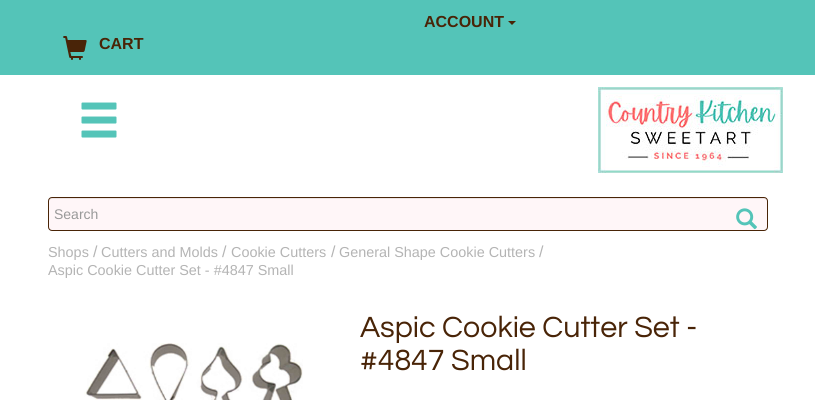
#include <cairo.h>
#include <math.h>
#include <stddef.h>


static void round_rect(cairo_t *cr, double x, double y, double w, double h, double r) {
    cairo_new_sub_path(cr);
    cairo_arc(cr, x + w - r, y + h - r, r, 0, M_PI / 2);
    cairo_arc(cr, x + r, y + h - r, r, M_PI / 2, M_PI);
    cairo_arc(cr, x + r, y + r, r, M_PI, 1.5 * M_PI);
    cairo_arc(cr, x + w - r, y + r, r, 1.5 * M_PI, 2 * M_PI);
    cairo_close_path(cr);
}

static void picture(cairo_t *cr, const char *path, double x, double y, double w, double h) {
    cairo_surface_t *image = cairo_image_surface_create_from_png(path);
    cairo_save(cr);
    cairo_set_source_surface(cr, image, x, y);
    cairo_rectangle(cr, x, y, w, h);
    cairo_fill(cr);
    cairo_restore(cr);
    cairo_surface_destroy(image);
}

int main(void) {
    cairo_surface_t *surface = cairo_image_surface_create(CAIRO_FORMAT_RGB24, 815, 400);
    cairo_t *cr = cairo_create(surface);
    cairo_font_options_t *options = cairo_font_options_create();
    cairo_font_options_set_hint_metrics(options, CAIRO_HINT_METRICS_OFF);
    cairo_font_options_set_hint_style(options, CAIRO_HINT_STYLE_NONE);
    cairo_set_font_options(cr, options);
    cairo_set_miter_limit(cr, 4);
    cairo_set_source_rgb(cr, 1, 1, 1);
    cairo_paint(cr);
    cairo_set_source_rgb(cr, 0.329, 0.769, 0.722);
    cairo_rectangle(cr, 0, 0, 815, 75);
    cairo_fill(cr);
    cairo_select_font_face(cr, "Liberation Sans", CAIRO_FONT_SLANT_NORMAL, CAIRO_FONT_WEIGHT_BOLD);
    cairo_set_font_size(cr, 16);
    cairo_set_source_rgb(cr, 0.286, 0.141, 0.031);
    cairo_move_to(cr, 424, 27);
    cairo_show_text(cr, "ACCOUNT");
    cairo_new_path(cr);
    cairo_move_to(cr, 508, 21);
    cairo_line_to(cr, 516, 21);
    cairo_line_to(cr, 512, 25);
    cairo_close_path(cr);
    cairo_fill(cr);
    picture(cr, "img1.png", 63, 36, 24, 24);
    cairo_move_to(cr, 99, 49);
    cairo_show_text(cr, "CART");
    picture(cr, "img2.png", 81, 102, 36, 36);
    picture(cr, "img3.png", 598, 87, 185, 86);
    cairo_set_source_rgb(cr, 1, 0.961, 0.969);
    round_rect(cr, 48, 197, 720, 34, 4);
    cairo_fill(cr);
    cairo_set_source_rgb(cr, 0.925, 0.89, 0.894);
    cairo_new_path(cr);
    cairo_move_to(cr, 52, 199);
    cairo_line_to(cr, 764, 199);
    cairo_curve_to(cr, 766, 199, 767, 200, 767, 202);
    cairo_curve_to(cr, 767, 200, 766, 198, 764, 198);
    cairo_line_to(cr, 52, 198);
    cairo_curve_to(cr, 50, 198, 49, 200, 49, 202);
    cairo_curve_to(cr, 49, 200, 50, 199, 52, 199);
    cairo_close_path(cr);
    cairo_fill(cr);
    round_rect(cr, 48.5, 197.5, 719, 33, 3.5);
    cairo_set_source_rgb(cr, 0.286, 0.141, 0.031);
    cairo_set_line_width(cr, 1);
    cairo_stroke(cr);
    cairo_select_font_face(cr, "Liberation Sans", CAIRO_FONT_SLANT_NORMAL, CAIRO_FONT_WEIGHT_NORMAL);
    cairo_set_font_size(cr, 14);
    cairo_set_source_rgb(cr, 0.6, 0.6, 0.6);
    cairo_move_to(cr, 54, 219);
    cairo_show_text(cr, "Search");
    picture(cr, "img4.png", 736, 208, 21, 22);
    cairo_set_font_size(cr, 14.4);
    cairo_set_source_rgb(cr, 0.706, 0.706, 0.706);
    cairo_move_to(cr, 48, 257);
    cairo_show_text(cr, "Shops");
    cairo_set_font_size(cr, 16);
    cairo_move_to(cr, 93, 257);
    cairo_show_text(cr, "/");
    cairo_set_font_size(cr, 14.4);
    cairo_move_to(cr, 101, 257);
    cairo_show_text(cr, "Cutters and Molds");
    cairo_set_font_size(cr, 16);
    cairo_move_to(cr, 222, 257);
    cairo_show_text(cr, "/");
    cairo_set_font_size(cr, 14.4);
    cairo_move_to(cr, 231, 257);
    cairo_show_text(cr, "Cookie Cutters");
    cairo_set_font_size(cr, 16);
    cairo_move_to(cr, 331, 257);
    cairo_show_text(cr, "/");
    cairo_set_font_size(cr, 14.4);
    cairo_move_to(cr, 339, 257);
    cairo_show_text(cr, "General Shape Cookie Cutters");
    cairo_set_font_size(cr, 16);
    cairo_move_to(cr, 539, 257);
    cairo_show_text(cr, "/");
    cairo_set_font_size(cr, 14.4);
    cairo_move_to(cr, 48, 275);
    cairo_show_text(cr, "Aspic Cookie Cutter Set - #4847 Small");
    picture(cr, "img5.png", 84, 343, 219, 57);
    cairo_select_font_face(cr, "Questrial", CAIRO_FONT_SLANT_NORMAL, CAIRO_FONT_WEIGHT_NORMAL);
    cairo_set_font_size(cr, 30.4);
    cairo_set_source_rgb(cr, 0.286, 0.141, 0.031);
    cairo_move_to(cr, 360, 337);
    cairo_show_text(cr, "Aspic Cookie Cutter Set -");
    cairo_move_to(cr, 360, 370);
    cairo_show_text(cr, "#4847 Small");
    cairo_surface_write_to_png(surface, "page.png");
    cairo_font_options_destroy(options);
    cairo_destroy(cr);
    cairo_surface_destroy(surface);
    return 0;
}
